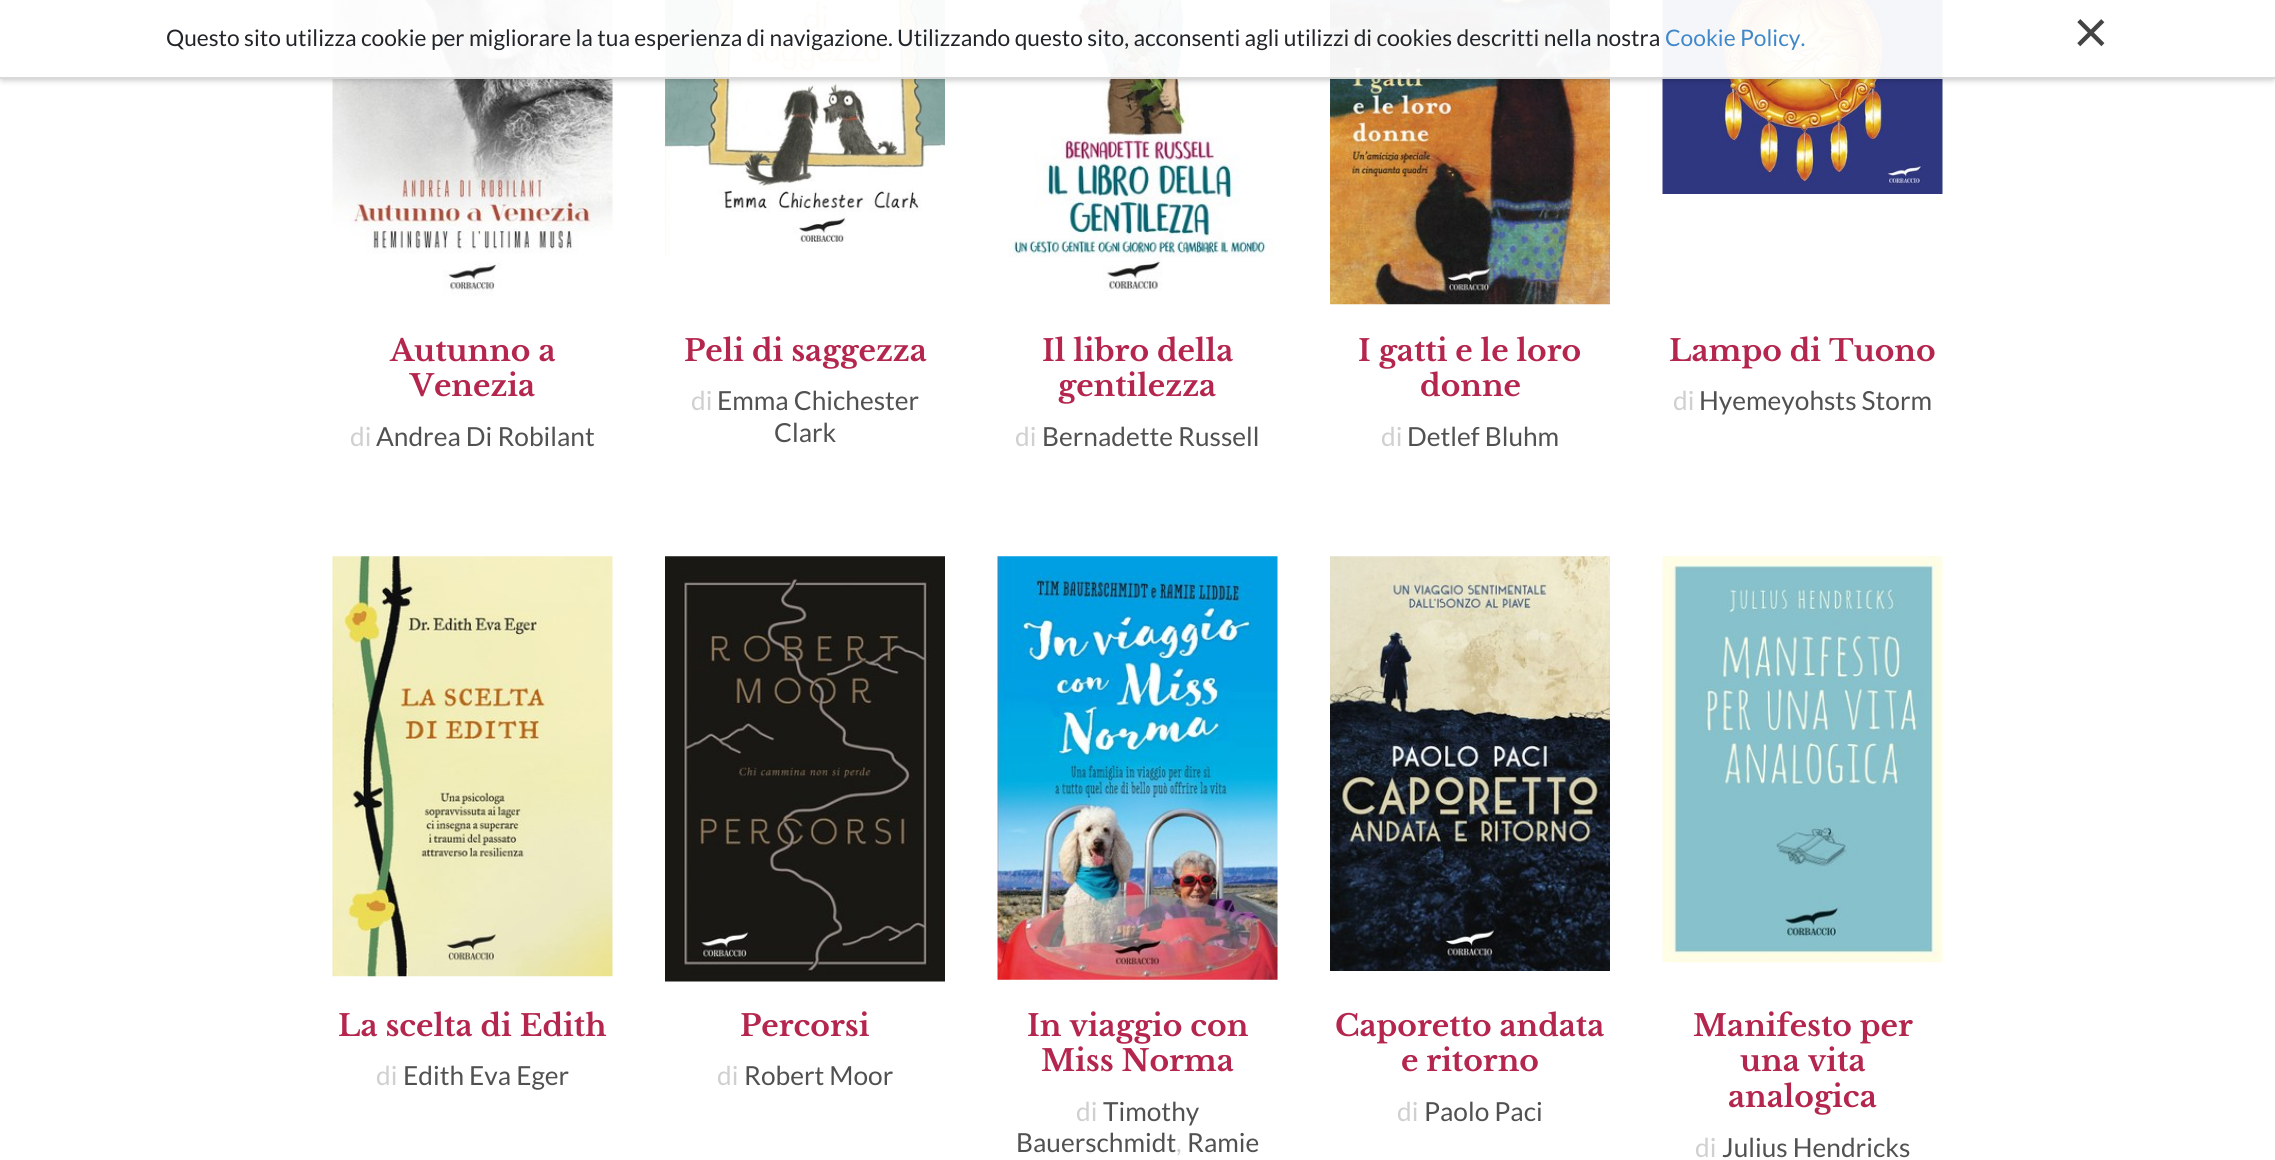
#include <cairo.h>
#include <math.h>
#include <stddef.h>


static void round_rect(cairo_t *cr, double x, double y, double w, double h, double r) {
    cairo_new_sub_path(cr);
    cairo_arc(cr, x + w - r, y + h - r, r, 0, M_PI / 2);
    cairo_arc(cr, x + r, y + h - r, r, M_PI / 2, M_PI);
    cairo_arc(cr, x + r, y + r, r, M_PI, 1.5 * M_PI);
    cairo_arc(cr, x + w - r, y + r, r, 1.5 * M_PI, 2 * M_PI);
    cairo_close_path(cr);
}

static void shadow(cairo_t *cr, double x, double y, double w, double h, double r, double blur, double alpha) {
    cairo_push_group_with_content(cr, CAIRO_CONTENT_ALPHA);
    cairo_set_operator(cr, CAIRO_OPERATOR_SOURCE);
    for (int i = 15; i >= -15 && fmin(w, h) + blur * i / 3 > 0; i -= 2) {
        double e = blur * i / 6;
        cairo_set_source_rgba(cr, 0, 0, 0, alpha * erfc((i - 1) / 8.5) / 2);
        round_rect(cr, x - e, y - e, w + 2 * e, h + 2 * e, fmax(0, fmin(r + e + blur * .6, fmin(w, h) / 2 + e)));
        cairo_fill(cr);
    }
    cairo_pattern_t *soft = cairo_pop_group(cr);
    cairo_mask(cr, soft);
    cairo_pattern_destroy(soft);
}

static void picture(cairo_t *cr, const char *path, double x, double y, double w, double h) {
    cairo_surface_t *image = cairo_image_surface_create_from_png(path);
    cairo_save(cr);
    cairo_set_source_surface(cr, image, x, y);
    cairo_rectangle(cr, x, y, w, h);
    cairo_fill(cr);
    cairo_restore(cr);
    cairo_surface_destroy(image);
}

int main(void) {
    cairo_surface_t *surface = cairo_image_surface_create(CAIRO_FORMAT_RGB24, 2275, 1160);
    cairo_t *cr = cairo_create(surface);
    cairo_font_options_t *options = cairo_font_options_create();
    cairo_font_options_set_hint_metrics(options, CAIRO_HINT_METRICS_OFF);
    cairo_font_options_set_hint_style(options, CAIRO_HINT_STYLE_NONE);
    cairo_set_font_options(cr, options);
    cairo_set_miter_limit(cr, 4);
    cairo_set_source_rgb(cr, 1, 1, 1);
    cairo_paint(cr);
    picture(cr, "img1.png", 332, 0, 281, 296);
    picture(cr, "img2.png", 665, 0, 280, 257);
    picture(cr, "img3.png", 1008, 0, 266, 291);
    picture(cr, "img4.png", 1330, 0, 280, 305);
    picture(cr, "img5.png", 1662, 0, 281, 194);
    cairo_save(cr);
    cairo_set_fill_rule(cr, CAIRO_FILL_RULE_EVEN_ODD);
    cairo_new_path(cr);
    cairo_move_to(cr, 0, 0);
    cairo_line_to(cr, 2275, 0);
    cairo_line_to(cr, 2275, 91);
    cairo_line_to(cr, 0, 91);
    cairo_close_path(cr);
    cairo_move_to(cr, 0, 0);
    cairo_line_to(cr, 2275, 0);
    cairo_line_to(cr, 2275, 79);
    cairo_line_to(cr, 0, 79);
    cairo_close_path(cr);
    cairo_clip(cr);
    cairo_set_source_rgb(cr, 0, 0, 0);
    shadow(cr, 2, 4, 2271, 75, 0, 3.5, 0.3);
    cairo_restore(cr);
    cairo_set_source_rgba(cr, 1, 1, 1, 0.95);
    cairo_rectangle(cr, 0, 0, 2275, 79);
    cairo_fill(cr);
    cairo_set_source_rgba(cr, 0, 0, 0, 0.15);
    cairo_rectangle(cr, 0, 77, 2275, 2);
    cairo_fill(cr);
    cairo_select_font_face(cr, "Lato", CAIRO_FONT_SLANT_NORMAL, CAIRO_FONT_WEIGHT_NORMAL);
    cairo_set_font_size(cr, 22.75);
    cairo_set_source_rgb(cr, 0.129, 0.145, 0.161);
    cairo_move_to(cr, 166, 46);
    cairo_show_text(cr, "Questo sito utilizza cookie per migliorare la tua esperienza di navigazione. Utilizzando questo sito, acconsenti agli utilizzi di cookies descritti nella nostra");
    cairo_set_source_rgb(cr, 0.251, 0.533, 0.788);
    cairo_move_to(cr, 1665, 46);
    cairo_show_text(cr, "Cookie Policy.");
    cairo_select_font_face(cr, "Liberation Sans", CAIRO_FONT_SLANT_NORMAL, CAIRO_FONT_WEIGHT_NORMAL);
    cairo_set_font_size(cr, 61);
    cairo_set_source_rgb(cr, 0.267, 0.267, 0.267);
    cairo_move_to(cr, 2073, 53);
    cairo_show_text(cr, "×");
    cairo_select_font_face(cr, "Libre Baskerville", CAIRO_FONT_SLANT_NORMAL, CAIRO_FONT_WEIGHT_BOLD);
    cairo_set_font_size(cr, 29.75);
    cairo_set_source_rgb(cr, 0.706, 0.149, 0.306);
    cairo_move_to(cr, 390, 361);
    cairo_show_text(cr, "Autunno a");
    cairo_move_to(cr, 410, 396);
    cairo_show_text(cr, "Venezia");
    cairo_select_font_face(cr, "Lato", CAIRO_FONT_SLANT_NORMAL, CAIRO_FONT_WEIGHT_NORMAL);
    cairo_set_font_size(cr, 26.25);
    cairo_set_source_rgb(cr, 0.816, 0.816, 0.816);
    cairo_move_to(cr, 350, 446);
    cairo_show_text(cr, "di");
    cairo_set_source_rgb(cr, 0.318, 0.318, 0.318);
    cairo_move_to(cr, 376, 446);
    cairo_show_text(cr, "Andrea Di Robilant");
    cairo_select_font_face(cr, "Libre Baskerville", CAIRO_FONT_SLANT_NORMAL, CAIRO_FONT_WEIGHT_BOLD);
    cairo_set_font_size(cr, 29.75);
    cairo_set_source_rgb(cr, 0.706, 0.149, 0.306);
    cairo_move_to(cr, 684, 361);
    cairo_show_text(cr, "Peli di saggezza");
    cairo_select_font_face(cr, "Lato", CAIRO_FONT_SLANT_NORMAL, CAIRO_FONT_WEIGHT_NORMAL);
    cairo_set_font_size(cr, 26.25);
    cairo_set_source_rgb(cr, 0.816, 0.816, 0.816);
    cairo_move_to(cr, 691, 410);
    cairo_show_text(cr, "di");
    cairo_set_source_rgb(cr, 0.318, 0.318, 0.318);
    cairo_move_to(cr, 717, 410);
    cairo_show_text(cr, "Emma Chichester");
    cairo_move_to(cr, 774, 442);
    cairo_show_text(cr, "Clark");
    cairo_select_font_face(cr, "Libre Baskerville", CAIRO_FONT_SLANT_NORMAL, CAIRO_FONT_WEIGHT_BOLD);
    cairo_set_font_size(cr, 29.75);
    cairo_set_source_rgb(cr, 0.706, 0.149, 0.306);
    cairo_move_to(cr, 1042, 361);
    cairo_show_text(cr, "Il libro della");
    cairo_move_to(cr, 1058, 396);
    cairo_show_text(cr, "gentilezza");
    cairo_select_font_face(cr, "Lato", CAIRO_FONT_SLANT_NORMAL, CAIRO_FONT_WEIGHT_NORMAL);
    cairo_set_font_size(cr, 26.25);
    cairo_set_source_rgb(cr, 0.816, 0.816, 0.816);
    cairo_move_to(cr, 1015, 446);
    cairo_show_text(cr, "di");
    cairo_set_source_rgb(cr, 0.318, 0.318, 0.318);
    cairo_move_to(cr, 1042, 446);
    cairo_show_text(cr, "Bernadette Russell");
    cairo_select_font_face(cr, "Libre Baskerville", CAIRO_FONT_SLANT_NORMAL, CAIRO_FONT_WEIGHT_BOLD);
    cairo_set_font_size(cr, 29.75);
    cairo_set_source_rgb(cr, 0.706, 0.149, 0.306);
    cairo_move_to(cr, 1358, 361);
    cairo_show_text(cr, "I gatti e le loro");
    cairo_move_to(cr, 1420, 396);
    cairo_show_text(cr, "donne");
    cairo_select_font_face(cr, "Lato", CAIRO_FONT_SLANT_NORMAL, CAIRO_FONT_WEIGHT_NORMAL);
    cairo_set_font_size(cr, 26.25);
    cairo_set_source_rgb(cr, 0.816, 0.816, 0.816);
    cairo_move_to(cr, 1381, 446);
    cairo_show_text(cr, "di");
    cairo_set_source_rgb(cr, 0.318, 0.318, 0.318);
    cairo_move_to(cr, 1407, 446);
    cairo_show_text(cr, "Detlef Bluhm");
    cairo_select_font_face(cr, "Libre Baskerville", CAIRO_FONT_SLANT_NORMAL, CAIRO_FONT_WEIGHT_BOLD);
    cairo_set_font_size(cr, 29.75);
    cairo_set_source_rgb(cr, 0.706, 0.149, 0.306);
    cairo_move_to(cr, 1669, 361);
    cairo_show_text(cr, "Lampo di Tuono");
    cairo_select_font_face(cr, "Lato", CAIRO_FONT_SLANT_NORMAL, CAIRO_FONT_WEIGHT_NORMAL);
    cairo_set_font_size(cr, 26.25);
    cairo_set_source_rgb(cr, 0.816, 0.816, 0.816);
    cairo_move_to(cr, 1673, 410);
    cairo_show_text(cr, "di");
    cairo_set_source_rgb(cr, 0.318, 0.318, 0.318);
    cairo_move_to(cr, 1699, 410);
    cairo_show_text(cr, "Hyemeyohsts Storm");
    picture(cr, "img6.png", 332, 556, 281, 421);
    cairo_select_font_face(cr, "Libre Baskerville", CAIRO_FONT_SLANT_NORMAL, CAIRO_FONT_WEIGHT_BOLD);
    cairo_set_font_size(cr, 29.75);
    cairo_set_source_rgb(cr, 0.706, 0.149, 0.306);
    cairo_move_to(cr, 338, 1036);
    cairo_show_text(cr, "La scelta di Edith");
    cairo_select_font_face(cr, "Lato", CAIRO_FONT_SLANT_NORMAL, CAIRO_FONT_WEIGHT_NORMAL);
    cairo_set_font_size(cr, 26.25);
    cairo_set_source_rgb(cr, 0.816, 0.816, 0.816);
    cairo_move_to(cr, 376, 1085);
    cairo_show_text(cr, "di");
    cairo_set_source_rgb(cr, 0.318, 0.318, 0.318);
    cairo_move_to(cr, 403, 1085);
    cairo_show_text(cr, "Edith Eva Eger");
    picture(cr, "img7.png", 665, 556, 280, 426);
    cairo_select_font_face(cr, "Libre Baskerville", CAIRO_FONT_SLANT_NORMAL, CAIRO_FONT_WEIGHT_BOLD);
    cairo_set_font_size(cr, 29.75);
    cairo_set_source_rgb(cr, 0.706, 0.149, 0.306);
    cairo_move_to(cr, 740, 1036);
    cairo_show_text(cr, "Percorsi");
    cairo_select_font_face(cr, "Lato", CAIRO_FONT_SLANT_NORMAL, CAIRO_FONT_WEIGHT_NORMAL);
    cairo_set_font_size(cr, 26.25);
    cairo_set_source_rgb(cr, 0.816, 0.816, 0.816);
    cairo_move_to(cr, 717, 1085);
    cairo_show_text(cr, "di");
    cairo_set_source_rgb(cr, 0.318, 0.318, 0.318);
    cairo_move_to(cr, 744, 1085);
    cairo_show_text(cr, "Robert Moor");
    picture(cr, "img8.png", 997, 556, 281, 424);
    cairo_select_font_face(cr, "Libre Baskerville", CAIRO_FONT_SLANT_NORMAL, CAIRO_FONT_WEIGHT_BOLD);
    cairo_set_font_size(cr, 29.75);
    cairo_set_source_rgb(cr, 0.706, 0.149, 0.306);
    cairo_move_to(cr, 1027, 1036);
    cairo_show_text(cr, "In viaggio con");
    cairo_move_to(cr, 1041, 1071);
    cairo_show_text(cr, "Miss Norma");
    cairo_select_font_face(cr, "Lato", CAIRO_FONT_SLANT_NORMAL, CAIRO_FONT_WEIGHT_NORMAL);
    cairo_set_font_size(cr, 26.25);
    cairo_set_source_rgb(cr, 0.816, 0.816, 0.816);
    cairo_move_to(cr, 1076, 1121);
    cairo_show_text(cr, "di");
    cairo_set_source_rgb(cr, 0.318, 0.318, 0.318);
    cairo_move_to(cr, 1103, 1121);
    cairo_show_text(cr, "Timothy");
    cairo_move_to(cr, 1016, 1152);
    cairo_show_text(cr, "Bauerschmidt");
    cairo_set_source_rgb(cr, 0.816, 0.816, 0.816);
    cairo_move_to(cr, 1176, 1152);
    cairo_show_text(cr, ",");
    cairo_set_source_rgb(cr, 0.318, 0.318, 0.318);
    cairo_move_to(cr, 1187, 1152);
    cairo_show_text(cr, "Ramie");
    picture(cr, "img9.png", 1330, 556, 280, 415);
    cairo_select_font_face(cr, "Libre Baskerville", CAIRO_FONT_SLANT_NORMAL, CAIRO_FONT_WEIGHT_BOLD);
    cairo_set_font_size(cr, 29.75);
    cairo_set_source_rgb(cr, 0.706, 0.149, 0.306);
    cairo_move_to(cr, 1335, 1036);
    cairo_show_text(cr, "Caporetto andata");
    cairo_move_to(cr, 1401, 1071);
    cairo_show_text(cr, "e ritorno");
    cairo_select_font_face(cr, "Lato", CAIRO_FONT_SLANT_NORMAL, CAIRO_FONT_WEIGHT_NORMAL);
    cairo_set_font_size(cr, 26.25);
    cairo_set_source_rgb(cr, 0.816, 0.816, 0.816);
    cairo_move_to(cr, 1397, 1121);
    cairo_show_text(cr, "di");
    cairo_set_source_rgb(cr, 0.318, 0.318, 0.318);
    cairo_move_to(cr, 1424, 1121);
    cairo_show_text(cr, "Paolo Paci");
    picture(cr, "img10.png", 1662, 556, 281, 407);
    cairo_select_font_face(cr, "Libre Baskerville", CAIRO_FONT_SLANT_NORMAL, CAIRO_FONT_WEIGHT_BOLD);
    cairo_set_font_size(cr, 29.75);
    cairo_set_source_rgb(cr, 0.706, 0.149, 0.306);
    cairo_move_to(cr, 1693, 1036);
    cairo_show_text(cr, "Manifesto per");
    cairo_move_to(cr, 1740, 1071);
    cairo_show_text(cr, "una vita");
    cairo_move_to(cr, 1728, 1107);
    cairo_show_text(cr, "analogica");
    cairo_select_font_face(cr, "Lato", CAIRO_FONT_SLANT_NORMAL, CAIRO_FONT_WEIGHT_NORMAL);
    cairo_set_font_size(cr, 26.25);
    cairo_set_source_rgb(cr, 0.816, 0.816, 0.816);
    cairo_move_to(cr, 1695, 1157);
    cairo_show_text(cr, "di");
    cairo_set_source_rgb(cr, 0.318, 0.318, 0.318);
    cairo_move_to(cr, 1722, 1157);
    cairo_show_text(cr, "Julius Hendricks");
    cairo_surface_write_to_png(surface, "page.png");
    cairo_font_options_destroy(options);
    cairo_destroy(cr);
    cairo_surface_destroy(surface);
    return 0;
}
